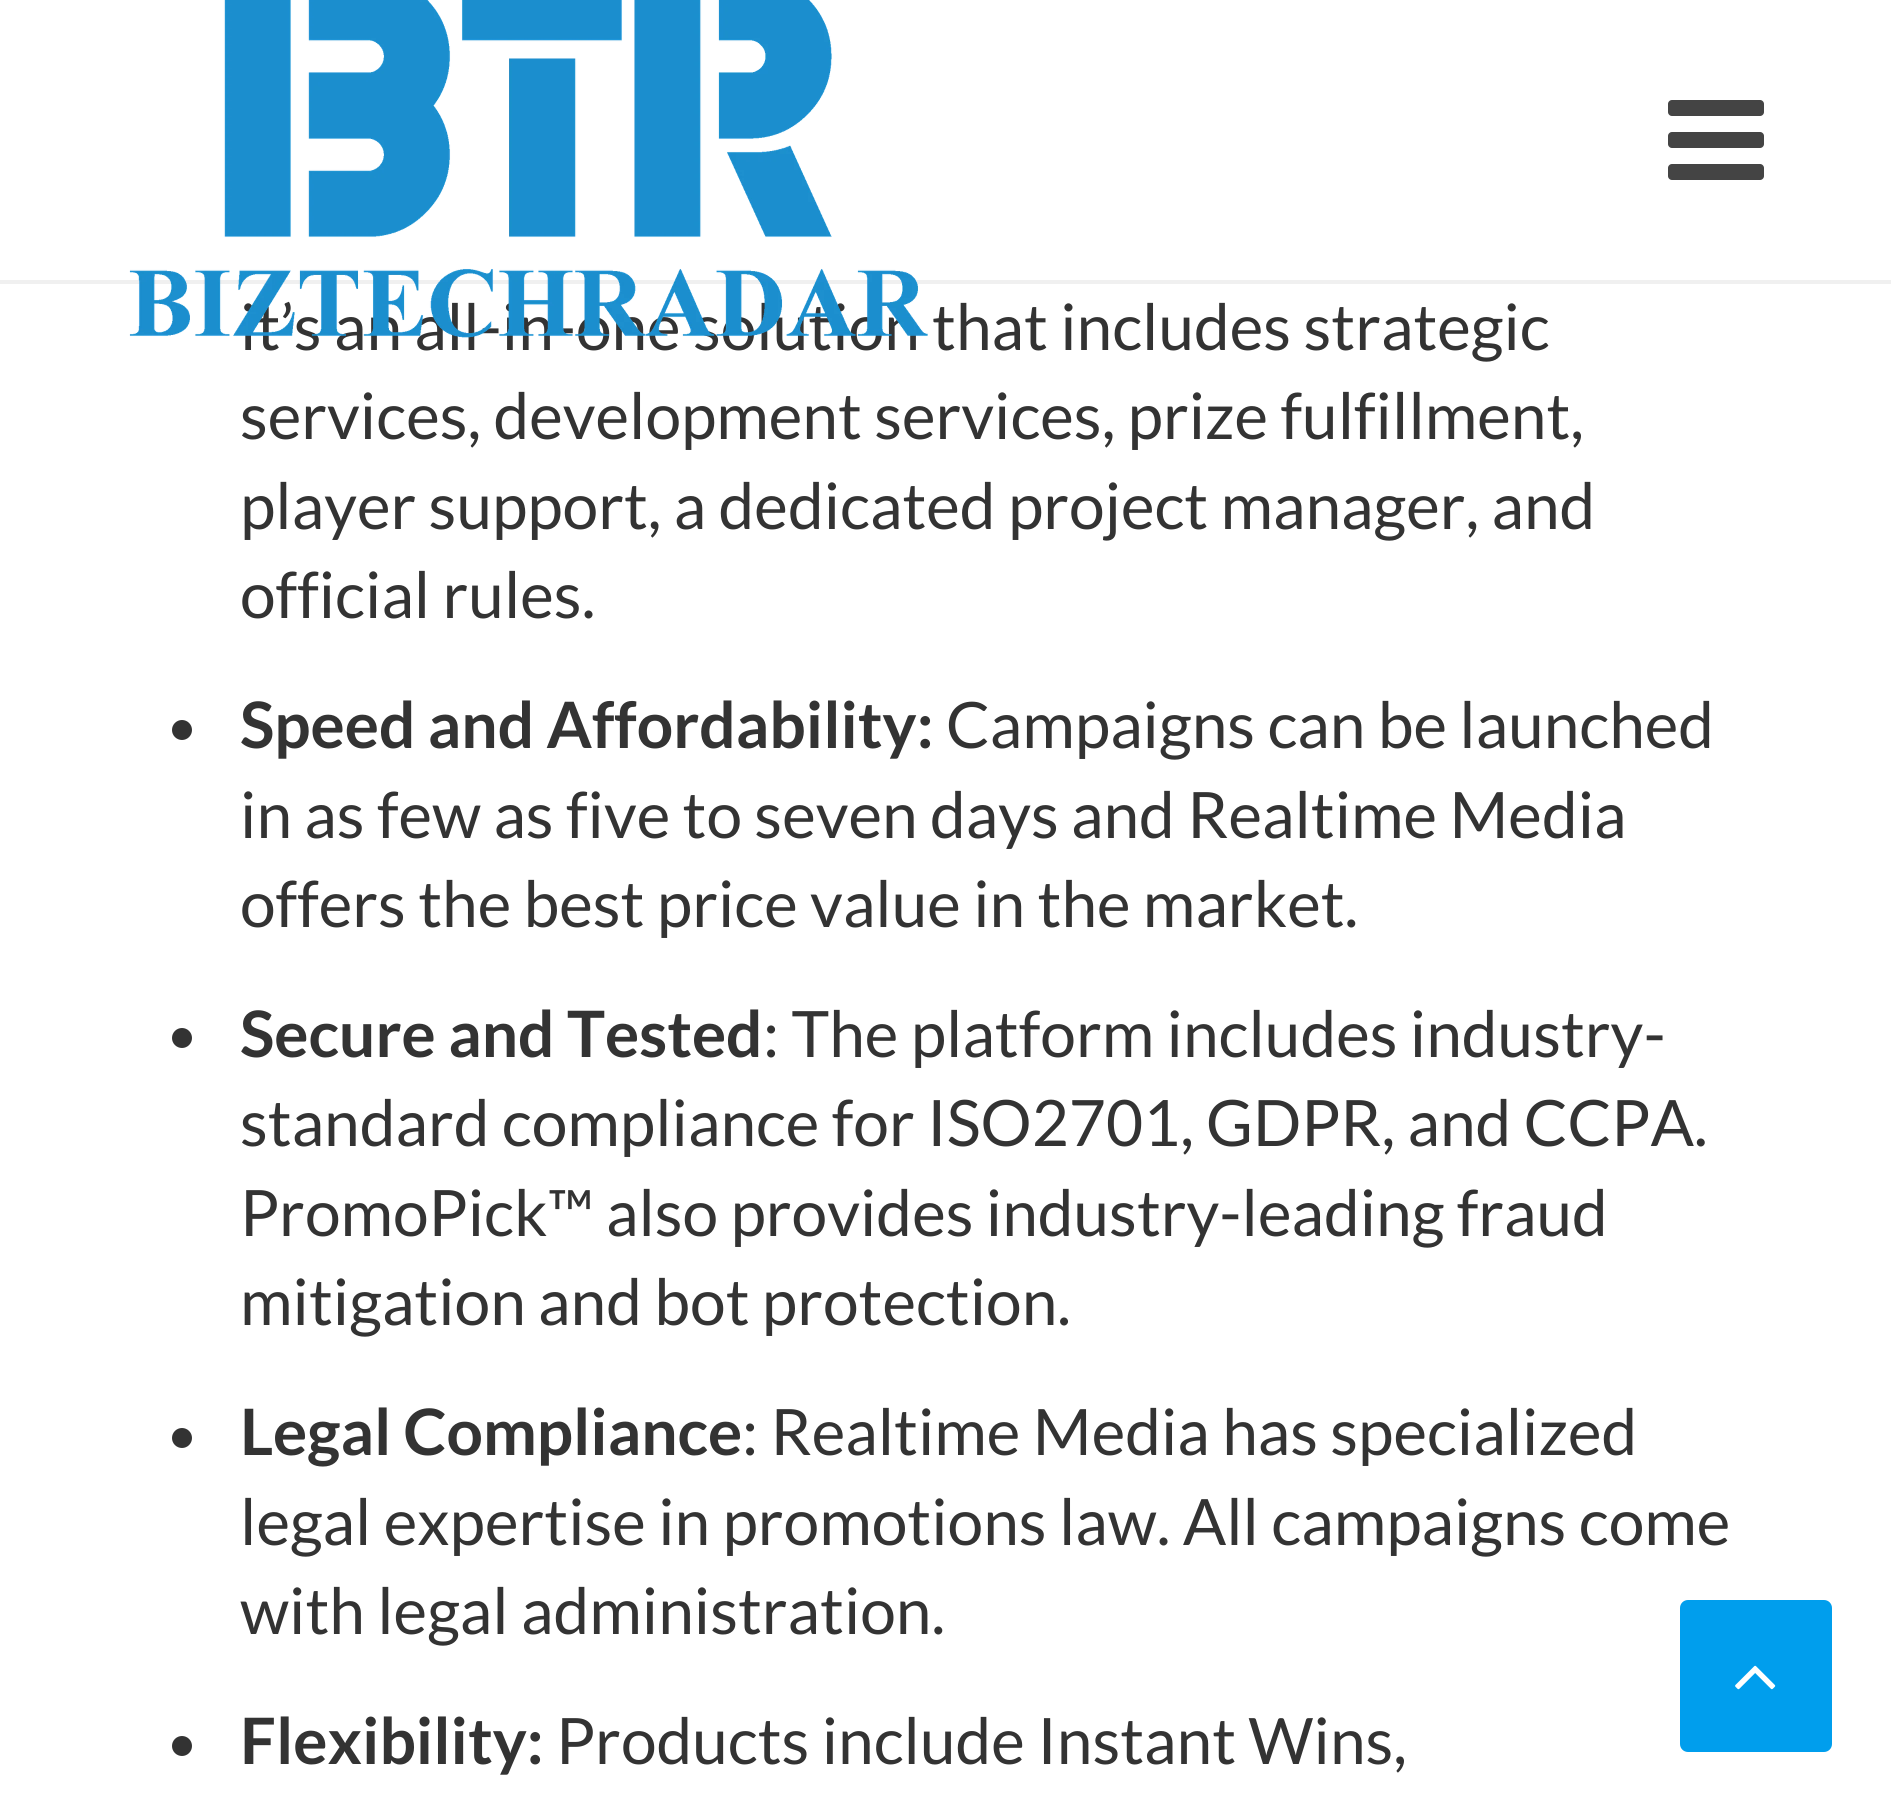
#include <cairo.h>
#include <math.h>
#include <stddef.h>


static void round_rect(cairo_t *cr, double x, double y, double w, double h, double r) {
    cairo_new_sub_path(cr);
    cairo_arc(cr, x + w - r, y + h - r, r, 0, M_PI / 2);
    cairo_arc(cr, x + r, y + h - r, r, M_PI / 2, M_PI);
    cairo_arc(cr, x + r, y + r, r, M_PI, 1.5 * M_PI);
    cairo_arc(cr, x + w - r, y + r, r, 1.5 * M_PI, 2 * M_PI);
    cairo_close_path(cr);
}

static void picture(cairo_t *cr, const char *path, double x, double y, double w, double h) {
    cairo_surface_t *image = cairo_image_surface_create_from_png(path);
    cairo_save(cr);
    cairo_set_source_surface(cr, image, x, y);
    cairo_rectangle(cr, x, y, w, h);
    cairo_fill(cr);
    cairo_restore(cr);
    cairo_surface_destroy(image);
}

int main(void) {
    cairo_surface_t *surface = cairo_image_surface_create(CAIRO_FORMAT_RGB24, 1891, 1809);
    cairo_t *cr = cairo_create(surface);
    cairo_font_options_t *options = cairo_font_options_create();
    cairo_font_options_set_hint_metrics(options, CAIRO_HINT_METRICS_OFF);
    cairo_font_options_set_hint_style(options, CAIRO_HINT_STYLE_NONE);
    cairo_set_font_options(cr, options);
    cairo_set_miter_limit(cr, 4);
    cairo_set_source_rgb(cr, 1, 1, 1);
    cairo_paint(cr);
    cairo_set_source_rgb(cr, 0.941, 0.941, 0.941);
    cairo_rectangle(cr, 0, 280, 1891, 4);
    cairo_fill(cr);
    cairo_select_font_face(cr, "Lato", CAIRO_FONT_SLANT_NORMAL, CAIRO_FONT_WEIGHT_NORMAL);
    cairo_set_font_size(cr, 64);
    cairo_set_source_rgb(cr, 0.2, 0.2, 0.2);
    cairo_move_to(cr, 240, 350);
    cairo_show_text(cr, "it’s an all-in-one solution that includes strategic");
    picture(cr, "img1.png", 129, 0, 799, 338);
    picture(cr, "img2.png", 1668, 100, 96, 80);
    cairo_move_to(cr, 240, 439);
    cairo_show_text(cr, "services, development services, prize fulfillment,");
    cairo_move_to(cr, 240, 529);
    cairo_show_text(cr, "player support, a dedicated project manager, and");
    cairo_move_to(cr, 240, 618);
    cairo_show_text(cr, "official rules.");
    cairo_new_path(cr);
    cairo_arc(cr, 182, 730, 10, 0, 2 * M_PI);
    cairo_fill(cr);
    cairo_select_font_face(cr, "Lato", CAIRO_FONT_SLANT_NORMAL, CAIRO_FONT_WEIGHT_BOLD);
    cairo_move_to(cr, 240, 748);
    cairo_show_text(cr, "Speed and Affordability:");
    cairo_select_font_face(cr, "Lato", CAIRO_FONT_SLANT_NORMAL, CAIRO_FONT_WEIGHT_NORMAL);
    cairo_move_to(cr, 946, 748);
    cairo_show_text(cr, "Campaigns can be launched");
    cairo_move_to(cr, 240, 838);
    cairo_show_text(cr, "in as few as five to seven days and Realtime Media");
    cairo_move_to(cr, 240, 927);
    cairo_show_text(cr, "offers the best price value in the market.");
    cairo_new_path(cr);
    cairo_arc(cr, 182, 1038, 10, 0, 2 * M_PI);
    cairo_fill(cr);
    cairo_select_font_face(cr, "Lato", CAIRO_FONT_SLANT_NORMAL, CAIRO_FONT_WEIGHT_BOLD);
    cairo_move_to(cr, 240, 1057);
    cairo_show_text(cr, "Secure and Tested");
    cairo_select_font_face(cr, "Lato", CAIRO_FONT_SLANT_NORMAL, CAIRO_FONT_WEIGHT_NORMAL);
    cairo_move_to(cr, 763, 1057);
    cairo_show_text(cr, ": The platform includes industry-");
    cairo_move_to(cr, 240, 1146);
    cairo_show_text(cr, "standard compliance for ISO2701, GDPR, and CCPA.");
    cairo_move_to(cr, 240, 1236);
    cairo_show_text(cr, "PromoPick™ also provides industry-leading fraud");
    cairo_move_to(cr, 240, 1325);
    cairo_show_text(cr, "mitigation and bot protection.");
    cairo_new_path(cr);
    cairo_arc(cr, 182, 1438, 10, 0, 2 * M_PI);
    cairo_fill(cr);
    cairo_select_font_face(cr, "Lato", CAIRO_FONT_SLANT_NORMAL, CAIRO_FONT_WEIGHT_BOLD);
    cairo_move_to(cr, 240, 1455);
    cairo_show_text(cr, "Legal Compliance");
    cairo_select_font_face(cr, "Lato", CAIRO_FONT_SLANT_NORMAL, CAIRO_FONT_WEIGHT_NORMAL);
    cairo_move_to(cr, 742, 1455);
    cairo_show_text(cr, ": Realtime Media has specialized");
    cairo_move_to(cr, 240, 1545);
    cairo_show_text(cr, "legal expertise in promotions law. All campaigns come");
    cairo_move_to(cr, 240, 1634);
    cairo_show_text(cr, "with legal administration.");
    cairo_new_path(cr);
    cairo_arc(cr, 182, 1746, 10, 0, 2 * M_PI);
    cairo_fill(cr);
    cairo_select_font_face(cr, "Lato", CAIRO_FONT_SLANT_NORMAL, CAIRO_FONT_WEIGHT_BOLD);
    cairo_move_to(cr, 240, 1764);
    cairo_show_text(cr, "Flexibility:");
    cairo_select_font_face(cr, "Lato", CAIRO_FONT_SLANT_NORMAL, CAIRO_FONT_WEIGHT_NORMAL);
    cairo_move_to(cr, 556, 1764);
    cairo_show_text(cr, "Products include Instant Wins,");
    cairo_set_source_rgb(cr, 0, 0.62, 0.929);
    round_rect(cr, 1680, 1600, 152, 152, 8);
    cairo_fill(cr);
    picture(cr, "img3.png", 1735, 1665, 41, 25);
    cairo_surface_write_to_png(surface, "page.png");
    cairo_font_options_destroy(options);
    cairo_destroy(cr);
    cairo_surface_destroy(surface);
    return 0;
}
